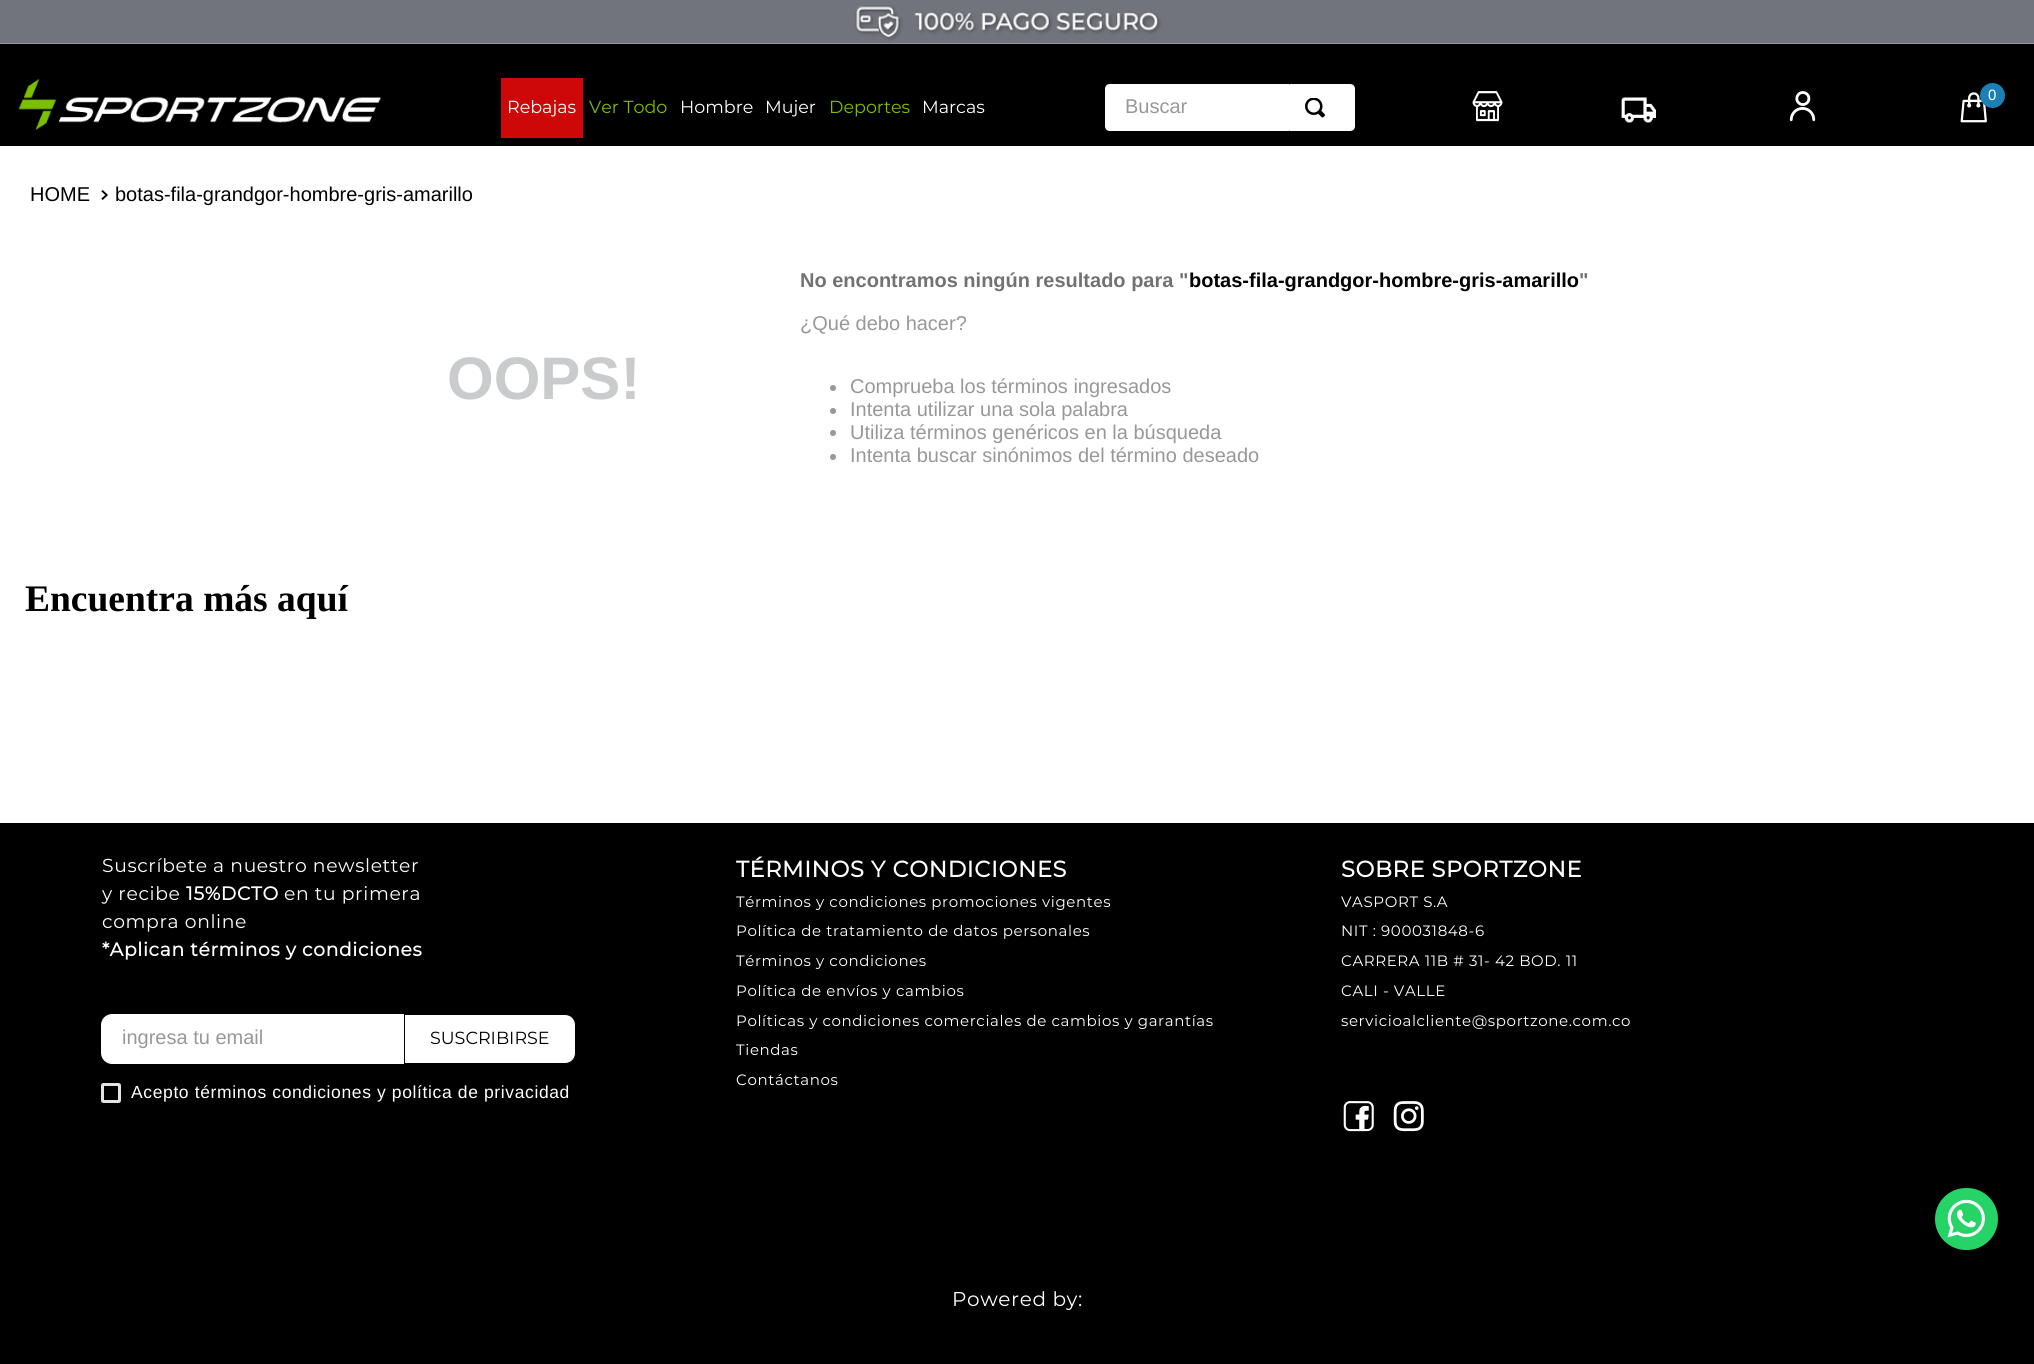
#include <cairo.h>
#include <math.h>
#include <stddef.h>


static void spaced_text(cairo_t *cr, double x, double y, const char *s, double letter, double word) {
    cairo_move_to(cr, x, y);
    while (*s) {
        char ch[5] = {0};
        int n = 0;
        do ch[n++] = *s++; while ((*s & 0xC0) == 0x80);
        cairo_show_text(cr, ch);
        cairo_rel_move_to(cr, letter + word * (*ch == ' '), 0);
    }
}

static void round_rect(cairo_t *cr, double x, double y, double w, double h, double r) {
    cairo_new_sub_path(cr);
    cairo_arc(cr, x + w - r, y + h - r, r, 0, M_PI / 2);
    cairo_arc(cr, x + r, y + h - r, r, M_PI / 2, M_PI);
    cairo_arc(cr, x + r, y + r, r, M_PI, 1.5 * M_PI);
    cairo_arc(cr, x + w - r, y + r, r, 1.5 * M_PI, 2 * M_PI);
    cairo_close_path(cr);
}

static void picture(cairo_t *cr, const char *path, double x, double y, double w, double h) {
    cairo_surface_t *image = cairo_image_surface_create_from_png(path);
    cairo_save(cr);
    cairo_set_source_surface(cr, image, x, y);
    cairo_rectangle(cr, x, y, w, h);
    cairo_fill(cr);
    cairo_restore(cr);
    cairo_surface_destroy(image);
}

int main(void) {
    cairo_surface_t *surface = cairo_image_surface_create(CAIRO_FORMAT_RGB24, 2034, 1364);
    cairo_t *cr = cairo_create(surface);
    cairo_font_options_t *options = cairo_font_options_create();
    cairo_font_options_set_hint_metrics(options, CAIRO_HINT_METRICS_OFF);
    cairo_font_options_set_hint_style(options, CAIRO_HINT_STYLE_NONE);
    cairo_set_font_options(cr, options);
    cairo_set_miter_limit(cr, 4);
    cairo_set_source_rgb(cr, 1, 1, 1);
    cairo_paint(cr);
    picture(cr, "img1.png", 0, 0, 2034, 44);
    cairo_set_source_rgb(cr, 0, 0, 0);
    cairo_rectangle(cr, 0, 44, 2034, 102);
    cairo_fill(cr);
    picture(cr, "img2.png", 18, 78, 363, 52);
    cairo_set_source_rgb(cr, 0.808, 0.035, 0.035);
    cairo_rectangle(cr, 501, 78, 82, 60);
    cairo_fill(cr);
    cairo_select_font_face(cr, "Montserrat", CAIRO_FONT_SLANT_NORMAL, CAIRO_FONT_WEIGHT_NORMAL);
    cairo_set_font_size(cr, 17.5);
    cairo_set_source_rgb(cr, 1, 1, 1);
    cairo_move_to(cr, 507, 113);
    cairo_show_text(cr, "Rebajas");
    cairo_set_source_rgb(cr, 0.478, 0.749, 0);
    cairo_move_to(cr, 589, 113);
    cairo_show_text(cr, "Ver Todo");
    cairo_set_source_rgb(cr, 1, 1, 1);
    cairo_move_to(cr, 680, 113);
    cairo_show_text(cr, "Hombre");
    cairo_move_to(cr, 765, 113);
    cairo_show_text(cr, "Mujer");
    cairo_set_source_rgb(cr, 0.478, 0.749, 0);
    cairo_move_to(cr, 829, 113);
    cairo_show_text(cr, "Deportes");
    cairo_set_source_rgb(cr, 1, 1, 1);
    cairo_move_to(cr, 922, 113);
    cairo_show_text(cr, "Marcas");
    cairo_new_path(cr);
    cairo_move_to(cr, 1110, 84);
    cairo_line_to(cr, 1289, 84);
    cairo_curve_to(cr, 1289.5, 84, 1290, 84.5, 1290, 85);
    cairo_line_to(cr, 1290, 130);
    cairo_curve_to(cr, 1290, 130.5, 1289.5, 131, 1289, 131);
    cairo_line_to(cr, 1110, 131);
    cairo_curve_to(cr, 1107, 131, 1105, 129, 1105, 126);
    cairo_line_to(cr, 1105, 89);
    cairo_curve_to(cr, 1105, 86, 1107, 84, 1110, 84);
    cairo_close_path(cr);
    cairo_fill(cr);
    cairo_select_font_face(cr, "Liberation Sans", CAIRO_FONT_SLANT_NORMAL, CAIRO_FONT_WEIGHT_NORMAL);
    cairo_set_font_size(cr, 20);
    cairo_set_source_rgb(cr, 0.592, 0.596, 0.6);
    cairo_move_to(cr, 1125, 113);
    cairo_show_text(cr, "Buscar");
    cairo_set_source_rgb(cr, 1, 1, 1);
    cairo_new_path(cr);
    cairo_move_to(cr, 1290, 84);
    cairo_line_to(cr, 1350, 84);
    cairo_curve_to(cr, 1353, 84, 1355, 86, 1355, 89);
    cairo_line_to(cr, 1355, 126);
    cairo_curve_to(cr, 1355, 129, 1353, 131, 1350, 131);
    cairo_line_to(cr, 1290, 131);
    cairo_close_path(cr);
    cairo_fill(cr);
    picture(cr, "img3.png", 1305, 98, 20, 20);
    picture(cr, "img4.png", 1472, 91, 31, 31);
    picture(cr, "img5.png", 1621, 97, 35, 26);
    picture(cr, "img6.png", 1789, 91, 27, 31);
    picture(cr, "img7.png", 1960, 92, 27, 31);
    cairo_set_source_rgb(cr, 0.11, 0.498, 0.71);
    cairo_arc(cr, 1992.5, 95.5, 12.5, 0, 2 * M_PI);
    cairo_fill(cr);
    cairo_set_font_size(cr, 15);
    cairo_set_source_rgb(cr, 1, 1, 1);
    cairo_move_to(cr, 1988, 100);
    cairo_show_text(cr, "0");
    cairo_set_font_size(cr, 20);
    cairo_set_source_rgb(cr, 0, 0, 0);
    cairo_move_to(cr, 30, 201);
    cairo_show_text(cr, "HOME");
    picture(cr, "img8.png", 101, 190, 7, 10);
    cairo_move_to(cr, 115, 201);
    cairo_show_text(cr, "botas-fila-grandgor-hombre-gris-amarillo");
    cairo_select_font_face(cr, "Liberation Sans", CAIRO_FONT_SLANT_NORMAL, CAIRO_FONT_WEIGHT_BOLD);
    cairo_set_font_size(cr, 60);
    cairo_set_source_rgb(cr, 0.792, 0.796, 0.8);
    cairo_move_to(cr, 447, 399);
    cairo_show_text(cr, "OOPS!");
    cairo_set_font_size(cr, 20);
    cairo_set_source_rgb(cr, 0.447, 0.447, 0.451);
    cairo_move_to(cr, 800, 287);
    cairo_show_text(cr, "No encontramos ningún resultado para \"");
    cairo_set_source_rgb(cr, 0, 0, 0);
    cairo_move_to(cr, 1189, 287);
    cairo_show_text(cr, "botas-fila-grandgor-hombre-gris-amarillo");
    cairo_set_source_rgb(cr, 0.447, 0.447, 0.451);
    cairo_move_to(cr, 1579, 287);
    cairo_show_text(cr, "\"");
    cairo_select_font_face(cr, "Liberation Sans", CAIRO_FONT_SLANT_NORMAL, CAIRO_FONT_WEIGHT_NORMAL);
    cairo_set_source_rgb(cr, 0.592, 0.596, 0.6);
    cairo_move_to(cr, 800, 330);
    cairo_show_text(cr, "¿Qué debo hacer?");
    cairo_new_path(cr);
    cairo_arc(cr, 833, 388, 3, 0, 2 * M_PI);
    cairo_fill(cr);
    cairo_move_to(cr, 850, 393);
    cairo_show_text(cr, "Comprueba los términos ingresados");
    cairo_new_path(cr);
    cairo_arc(cr, 833, 411, 3, 0, 2 * M_PI);
    cairo_fill(cr);
    cairo_move_to(cr, 850, 416);
    cairo_show_text(cr, "Intenta utilizar una sola palabra");
    cairo_new_path(cr);
    cairo_arc(cr, 833, 433, 3, 0, 2 * M_PI);
    cairo_fill(cr);
    cairo_move_to(cr, 850, 439);
    cairo_show_text(cr, "Utiliza términos genéricos en la búsqueda");
    cairo_new_path(cr);
    cairo_arc(cr, 833, 457, 3, 0, 2 * M_PI);
    cairo_fill(cr);
    cairo_move_to(cr, 850, 462);
    cairo_show_text(cr, "Intenta buscar sinónimos del término deseado");
    cairo_select_font_face(cr, "Liberation Serif", CAIRO_FONT_SLANT_NORMAL, CAIRO_FONT_WEIGHT_BOLD);
    cairo_set_font_size(cr, 37.5);
    cairo_set_source_rgb(cr, 0, 0, 0);
    cairo_move_to(cr, 25, 611);
    cairo_show_text(cr, "Encuentra más aquí");
    cairo_rectangle(cr, 0, 823, 2034, 541);
    cairo_fill(cr);
    cairo_select_font_face(cr, "Montserrat", CAIRO_FONT_SLANT_NORMAL, CAIRO_FONT_WEIGHT_NORMAL);
    cairo_set_font_size(cr, 18.75);
    cairo_set_source_rgb(cr, 1, 1, 1);
    spaced_text(cr, 102, 872, "Suscríbete a nuestro newsletter", 0.62, 0);
    spaced_text(cr, 102, 900, "y recibe", 0.62, 0);
    cairo_select_font_face(cr, "Montserrat", CAIRO_FONT_SLANT_NORMAL, CAIRO_FONT_WEIGHT_BOLD);
    spaced_text(cr, 186, 900, "15%DCTO", 0.62, 0);
    cairo_select_font_face(cr, "Montserrat", CAIRO_FONT_SLANT_NORMAL, CAIRO_FONT_WEIGHT_NORMAL);
    spaced_text(cr, 284, 900, "en tu primera", 0.62, 0);
    spaced_text(cr, 102, 928, "compra online", 0.62, 0);
    cairo_select_font_face(cr, "Montserrat", CAIRO_FONT_SLANT_NORMAL, CAIRO_FONT_WEIGHT_BOLD);
    spaced_text(cr, 102, 956, "*Aplican términos y condiciones", 0.62, 0);
    cairo_new_path(cr);
    cairo_move_to(cr, 112, 1014);
    cairo_line_to(cr, 404, 1014);
    cairo_line_to(cr, 404, 1064);
    cairo_line_to(cr, 112, 1064);
    cairo_curve_to(cr, 106, 1064, 101, 1059, 101, 1053);
    cairo_line_to(cr, 101, 1025);
    cairo_curve_to(cr, 101, 1019, 106, 1014, 112, 1014);
    cairo_close_path(cr);
    cairo_fill(cr);
    cairo_select_font_face(cr, "Liberation Sans", CAIRO_FONT_SLANT_NORMAL, CAIRO_FONT_WEIGHT_NORMAL);
    cairo_set_font_size(cr, 20);
    cairo_set_source_rgb(cr, 0.592, 0.596, 0.6);
    cairo_move_to(cr, 122, 1044);
    cairo_show_text(cr, "ingresa tu email");
    cairo_set_source_rgb(cr, 1, 1, 1);
    cairo_new_path(cr);
    cairo_move_to(cr, 404.5, 1014.5);
    cairo_line_to(cr, 565, 1014.5);
    cairo_curve_to(cr, 571, 1014.5, 575.5, 1019, 575.5, 1025);
    cairo_line_to(cr, 575.5, 1053);
    cairo_curve_to(cr, 575.5, 1059, 571, 1063.5, 565, 1063.5);
    cairo_line_to(cr, 404.5, 1063.5);
    cairo_close_path(cr);
    cairo_fill_preserve(cr);
    cairo_set_source_rgb(cr, 0, 0, 0);
    cairo_set_line_width(cr, 1);
    cairo_stroke(cr);
    cairo_select_font_face(cr, "Montserrat", CAIRO_FONT_SLANT_NORMAL, CAIRO_FONT_WEIGHT_NORMAL);
    cairo_set_font_size(cr, 17.5);
    cairo_move_to(cr, 430, 1044);
    cairo_show_text(cr, "SUSCRIBIRSE");
    round_rect(cr, 102.5, 1084.5, 17, 17, 1);
    cairo_set_source_rgb(cr, 0.89, 0.894, 0.902);
    cairo_set_line_width(cr, 3);
    cairo_stroke(cr);
    cairo_select_font_face(cr, "Liberation Sans", CAIRO_FONT_SLANT_NORMAL, CAIRO_FONT_WEIGHT_NORMAL);
    cairo_set_source_rgb(cr, 1, 1, 1);
    spaced_text(cr, 131, 1098, "Acepto términos condiciones y política de privacidad", 0.62, 0);
    cairo_select_font_face(cr, "Montserrat", CAIRO_FONT_SLANT_NORMAL, CAIRO_FONT_WEIGHT_BOLD);
    cairo_set_font_size(cr, 22.5);
    spaced_text(cr, 736, 877, "TÉRMINOS Y CONDICIONES", 0.62, 0);
    cairo_select_font_face(cr, "Montserrat", CAIRO_FONT_SLANT_NORMAL, CAIRO_FONT_WEIGHT_NORMAL);
    cairo_set_font_size(cr, 15);
    spaced_text(cr, 736, 907, "Términos y condiciones promociones vigentes", 0.62, 0);
    spaced_text(cr, 736, 936, "Política de tratamiento de datos personales", 0.62, 0);
    spaced_text(cr, 736, 966, "Términos y condiciones", 0.62, 0);
    spaced_text(cr, 736, 996, "Política de envíos y cambios", 0.62, 0);
    spaced_text(cr, 736, 1026, "Políticas y condiciones comerciales de cambios y garantías", 0.62, 0);
    spaced_text(cr, 736, 1055, "Tiendas", 0.62, 0);
    spaced_text(cr, 736, 1085, "Contáctanos", 0.62, 0);
    cairo_select_font_face(cr, "Montserrat", CAIRO_FONT_SLANT_NORMAL, CAIRO_FONT_WEIGHT_BOLD);
    cairo_set_font_size(cr, 22.5);
    spaced_text(cr, 1341, 877, "SOBRE SPORTZONE", 0.62, 0);
    cairo_select_font_face(cr, "Montserrat", CAIRO_FONT_SLANT_NORMAL, CAIRO_FONT_WEIGHT_NORMAL);
    cairo_set_font_size(cr, 15);
    spaced_text(cr, 1341, 907, "VASPORT S.A", 0.62, 0);
    spaced_text(cr, 1341, 936, "NIT : 900031848-6", 0.62, 0);
    spaced_text(cr, 1341, 966, "CARRERA 11B # 31- 42 BOD. 11", 0.62, 0);
    spaced_text(cr, 1341, 996, "CALI - VALLE", 0.62, 0);
    spaced_text(cr, 1341, 1026, "servicioalcliente@sportzone.com.co", 0.62, 0);
    picture(cr, "img9.png", 1343, 1101, 31, 31);
    picture(cr, "img10.png", 1393, 1101, 31, 31);
    cairo_set_font_size(cr, 20);
    spaced_text(cr, 952, 1306, "Powered by:", 0.62, 0);
    cairo_set_source_rgb(cr, 0.145, 0.827, 0.4);
    round_rect(cr, 1935, 1188, 63, 62, 31);
    cairo_fill(cr);
    picture(cr, "img11.png", 1947, 1199, 38, 39);
    cairo_surface_write_to_png(surface, "page.png");
    cairo_font_options_destroy(options);
    cairo_destroy(cr);
    cairo_surface_destroy(surface);
    return 0;
}
